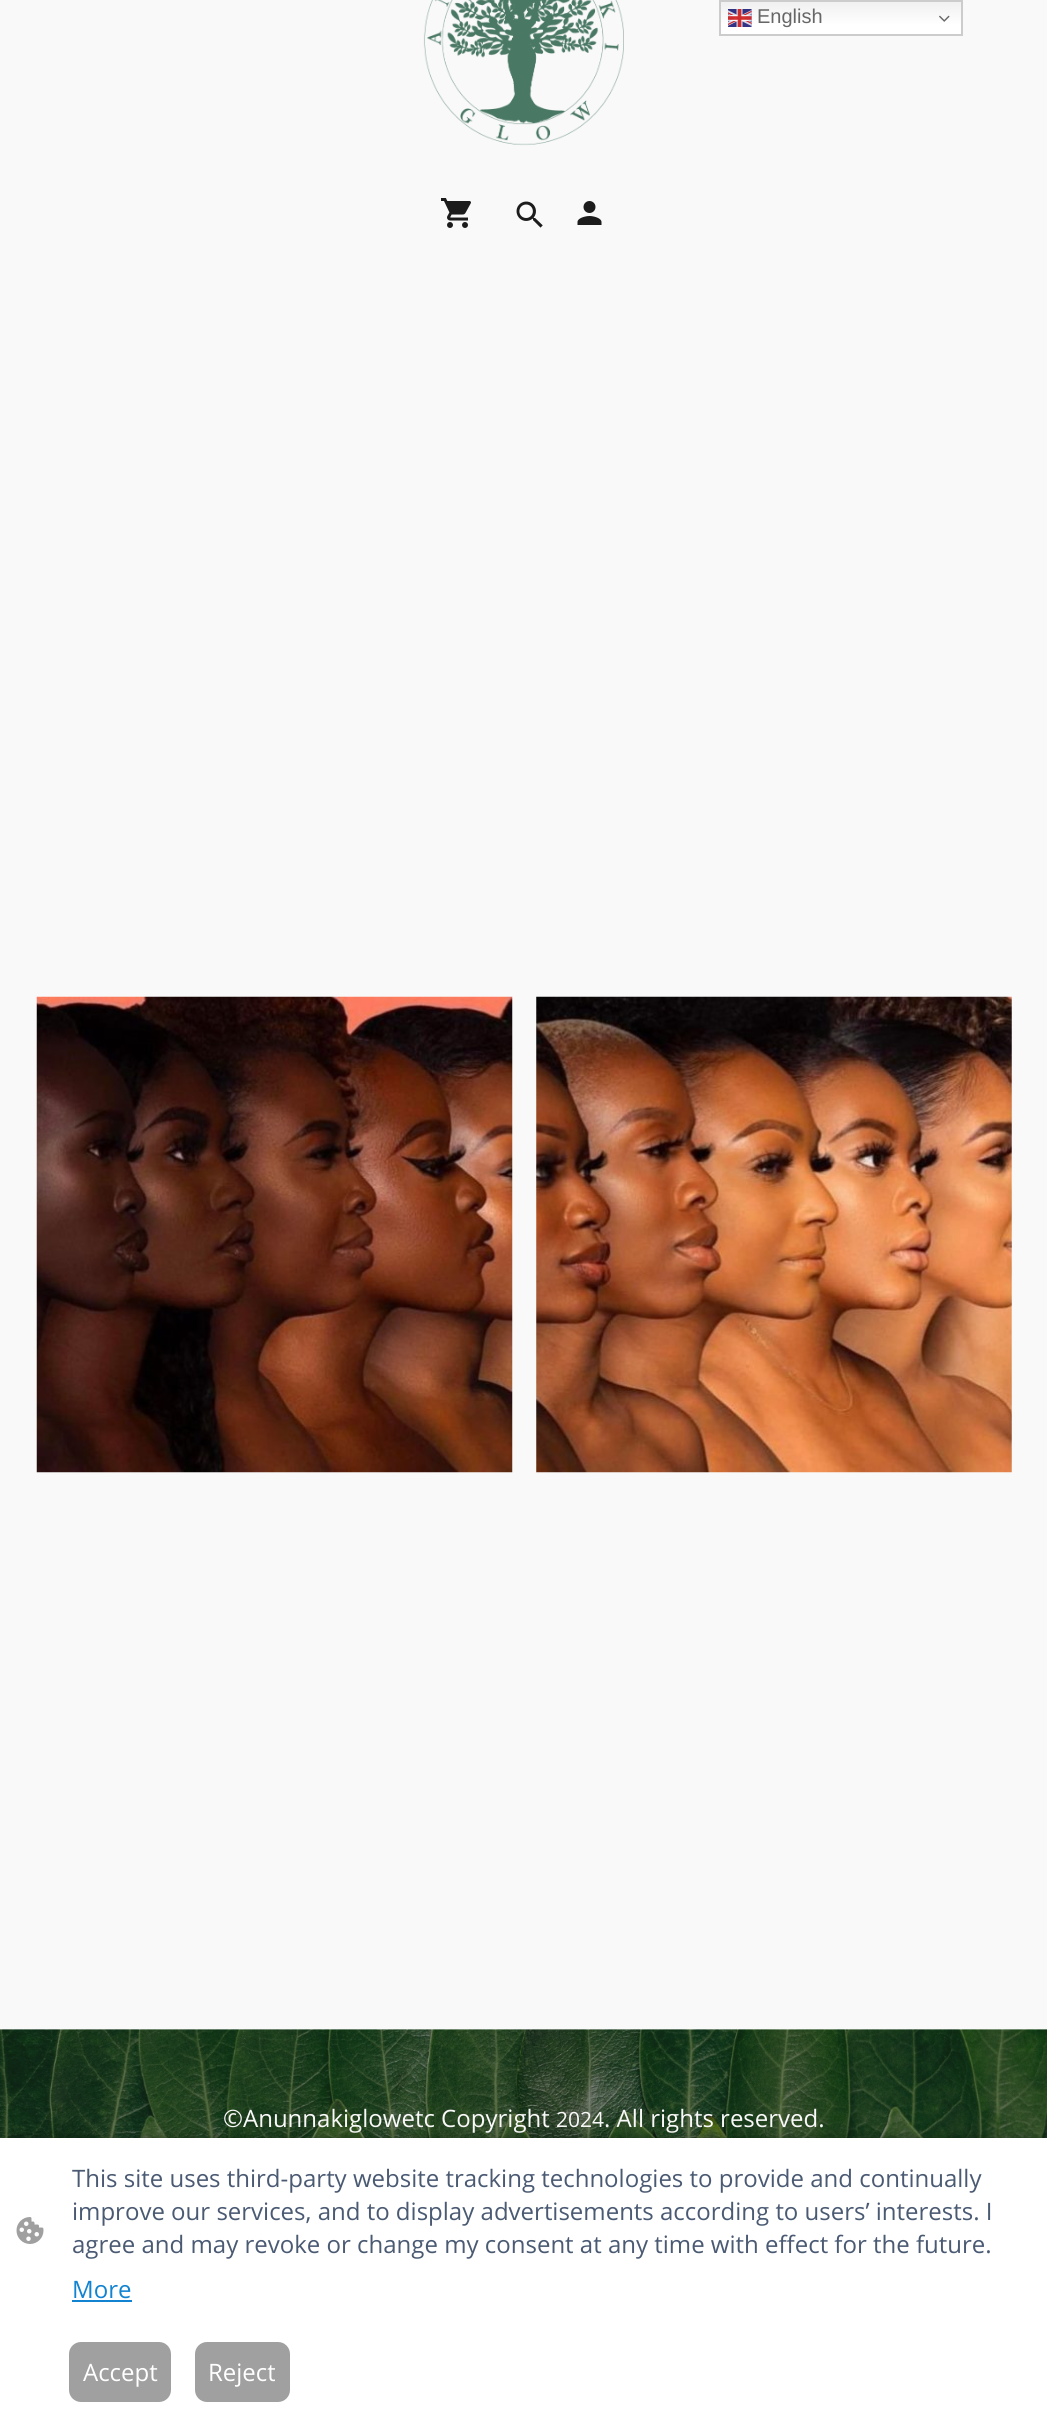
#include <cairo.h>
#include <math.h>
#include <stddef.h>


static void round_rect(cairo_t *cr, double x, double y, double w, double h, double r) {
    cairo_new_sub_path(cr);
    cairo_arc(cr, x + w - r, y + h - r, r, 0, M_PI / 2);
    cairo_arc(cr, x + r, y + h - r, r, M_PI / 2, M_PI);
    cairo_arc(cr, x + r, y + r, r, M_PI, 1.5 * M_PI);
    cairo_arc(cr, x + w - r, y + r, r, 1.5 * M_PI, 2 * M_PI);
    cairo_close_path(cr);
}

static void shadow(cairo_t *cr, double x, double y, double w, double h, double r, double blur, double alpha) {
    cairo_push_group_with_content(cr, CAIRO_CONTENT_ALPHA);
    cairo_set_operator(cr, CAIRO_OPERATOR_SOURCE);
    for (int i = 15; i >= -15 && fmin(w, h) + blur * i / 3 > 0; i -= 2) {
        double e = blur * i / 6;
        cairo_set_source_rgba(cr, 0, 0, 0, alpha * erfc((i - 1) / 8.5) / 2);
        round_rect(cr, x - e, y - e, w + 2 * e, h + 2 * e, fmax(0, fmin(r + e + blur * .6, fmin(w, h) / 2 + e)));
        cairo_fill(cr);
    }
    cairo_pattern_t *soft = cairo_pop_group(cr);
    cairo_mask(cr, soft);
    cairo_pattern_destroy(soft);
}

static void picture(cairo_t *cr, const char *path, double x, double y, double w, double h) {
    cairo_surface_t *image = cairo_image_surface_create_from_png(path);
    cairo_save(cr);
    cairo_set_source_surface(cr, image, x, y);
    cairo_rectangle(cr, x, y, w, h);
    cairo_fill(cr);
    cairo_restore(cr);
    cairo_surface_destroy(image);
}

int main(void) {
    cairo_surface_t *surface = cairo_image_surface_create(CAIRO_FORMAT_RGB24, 1047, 2413);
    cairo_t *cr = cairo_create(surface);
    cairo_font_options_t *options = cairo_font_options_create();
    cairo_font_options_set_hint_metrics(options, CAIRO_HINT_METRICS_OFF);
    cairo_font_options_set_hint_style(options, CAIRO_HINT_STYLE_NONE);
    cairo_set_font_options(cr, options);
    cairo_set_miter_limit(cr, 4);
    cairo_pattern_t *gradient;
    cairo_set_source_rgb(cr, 0.973, 0.973, 0.973);
    cairo_paint(cr);
    gradient = cairo_pattern_create_linear(841, 0, 841, 36);
    cairo_pattern_add_color_stop_rgba(gradient, 0, 0.937, 0.937, 0.937, 1);
    cairo_pattern_add_color_stop_rgba(gradient, 0.7, 1, 1, 1, 1);
    cairo_set_source(cr, gradient);
    cairo_pattern_destroy(gradient);
    cairo_rectangle(cr, 721, 2, 240, 32);
    cairo_fill(cr);
    cairo_rectangle(cr, 720, 1, 242, 34);
    cairo_set_source_rgb(cr, 0.8, 0.8, 0.8);
    cairo_stroke(cr);
    picture(cr, "img1.png", 728, 9, 24, 18);
    cairo_select_font_face(cr, "Liberation Sans", CAIRO_FONT_SLANT_NORMAL, CAIRO_FONT_WEIGHT_NORMAL);
    cairo_set_font_size(cr, 20);
    cairo_set_source_rgb(cr, 0.4, 0.4, 0.4);
    cairo_move_to(cr, 757, 23);
    cairo_show_text(cr, "English");
    picture(cr, "img2.png", 939, 15, 11, 7);
    picture(cr, "img3.png", 423, 0, 201, 146);
    picture(cr, "img4.png", 441, 198, 30, 30);
    picture(cr, "img5.png", 516, 201, 27, 27);
    picture(cr, "img6.png", 577, 201, 25, 24);
    picture(cr, "img7.png", 36, 996, 477, 477);
    picture(cr, "img8.png", 536, 996, 476, 477);
    picture(cr, "img9.png", 0, 2029, 1047, 109);
    cairo_select_font_face(cr, "Open Sans", CAIRO_FONT_SLANT_NORMAL, CAIRO_FONT_WEIGHT_NORMAL);
    cairo_set_font_size(cr, 24);
    cairo_set_source_rgb(cr, 0.973, 0.973, 0.973);
    cairo_move_to(cr, 223, 2127);
    cairo_show_text(cr, "©Anunnakiglowetc Copyright");
    cairo_set_font_size(cr, 21);
    cairo_move_to(cr, 556, 2127);
    cairo_show_text(cr, "2024");
    cairo_set_font_size(cr, 24);
    cairo_move_to(cr, 604, 2127);
    cairo_show_text(cr, ". All rights reserved.");
    cairo_set_source_rgb(cr, 0, 0, 0);
    shadow(cr, 9, 2142, 1029, 258, 0, 6, 0.63);
    cairo_set_source_rgb(cr, 1, 1, 1);
    cairo_rectangle(cr, 0, 2138, 1047, 275);
    cairo_fill(cr);
    picture(cr, "img10.png", 16, 2217, 28, 27);
    cairo_set_source_rgb(cr, 0.29, 0.353, 0.451);
    cairo_move_to(cr, 72, 2187);
    cairo_show_text(cr, "This site uses third-party website tracking technologies to provide and continually");
    cairo_move_to(cr, 72, 2220);
    cairo_show_text(cr, "improve our services, and to display advertisements according to users’ interests. I");
    cairo_move_to(cr, 72, 2253);
    cairo_show_text(cr, "agree and may revoke or change my consent at any time with effect for the future.");
    cairo_set_source_rgb(cr, 0.067, 0.514, 0.82);
    cairo_move_to(cr, 72, 2298);
    cairo_show_text(cr, "More");
    cairo_rectangle(cr, 72, 2300, 60, 2);
    cairo_fill(cr);
    cairo_set_source_rgb(cr, 0.627, 0.627, 0.627);
    round_rect(cr, 70, 2343, 100, 58, 11);
    cairo_fill_preserve(cr);
    cairo_stroke(cr);
    cairo_set_source_rgb(cr, 1, 1, 1);
    cairo_move_to(cr, 83, 2381);
    cairo_show_text(cr, "Accept");
    cairo_set_source_rgb(cr, 0.627, 0.627, 0.627);
    round_rect(cr, 196, 2343, 93, 58, 11);
    cairo_fill_preserve(cr);
    cairo_stroke(cr);
    cairo_set_source_rgb(cr, 1, 1, 1);
    cairo_move_to(cr, 208, 2381);
    cairo_show_text(cr, "Reject");
    cairo_surface_write_to_png(surface, "page.png");
    cairo_font_options_destroy(options);
    cairo_destroy(cr);
    cairo_surface_destroy(surface);
    return 0;
}
